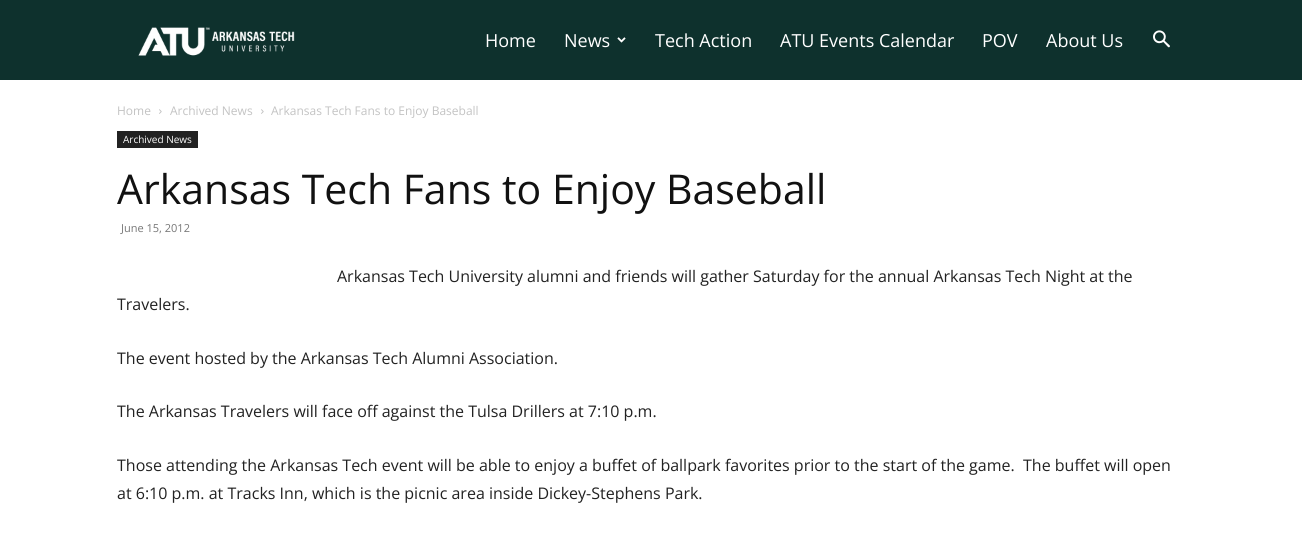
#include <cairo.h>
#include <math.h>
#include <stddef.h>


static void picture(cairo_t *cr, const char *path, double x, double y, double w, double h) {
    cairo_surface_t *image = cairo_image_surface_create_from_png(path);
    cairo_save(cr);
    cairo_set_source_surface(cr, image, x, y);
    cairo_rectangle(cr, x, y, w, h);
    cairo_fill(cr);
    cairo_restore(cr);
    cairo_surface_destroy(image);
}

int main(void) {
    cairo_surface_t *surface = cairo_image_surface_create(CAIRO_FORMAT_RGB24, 1302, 544);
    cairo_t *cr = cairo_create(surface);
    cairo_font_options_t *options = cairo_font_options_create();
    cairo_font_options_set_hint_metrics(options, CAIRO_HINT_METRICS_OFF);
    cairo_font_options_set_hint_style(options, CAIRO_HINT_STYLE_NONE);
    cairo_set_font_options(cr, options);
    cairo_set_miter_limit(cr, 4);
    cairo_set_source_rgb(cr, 1, 1, 1);
    cairo_paint(cr);
    cairo_set_source_rgb(cr, 0.055, 0.192, 0.176);
    cairo_rectangle(cr, 0, 0, 1302, 80);
    cairo_fill(cr);
    picture(cr, "img1.png", 138, 27, 157, 29);
    cairo_select_font_face(cr, "Open Sans", CAIRO_FONT_SLANT_NORMAL, CAIRO_FONT_WEIGHT_NORMAL);
    cairo_set_font_size(cr, 18);
    cairo_set_source_rgb(cr, 1, 1, 1);
    cairo_move_to(cr, 485, 47);
    cairo_show_text(cr, "Home");
    cairo_move_to(cr, 564, 47);
    cairo_show_text(cr, "News");
    picture(cr, "img2.png", 617, 37, 9, 6);
    cairo_move_to(cr, 655, 47);
    cairo_show_text(cr, "Tech Action");
    cairo_move_to(cr, 780, 47);
    cairo_show_text(cr, "ATU Events Calendar");
    cairo_move_to(cr, 982, 47);
    cairo_show_text(cr, "POV");
    cairo_move_to(cr, 1046, 47);
    cairo_show_text(cr, "About Us");
    picture(cr, "img3.png", 1153, 30, 17, 18);
    cairo_set_font_size(cr, 12);
    cairo_set_source_rgb(cr, 0.765, 0.765, 0.765);
    cairo_move_to(cr, 117, 115);
    cairo_show_text(cr, "Home");
    picture(cr, "img4.png", 159, 109, 3, 5);
    cairo_move_to(cr, 170, 115);
    cairo_show_text(cr, "Archived News");
    picture(cr, "img4.png", 261, 109, 3, 5);
    cairo_move_to(cr, 271, 115);
    cairo_show_text(cr, "Arkansas Tech Fans to Enjoy Baseball");
    cairo_set_source_rgb(cr, 0.133, 0.133, 0.133);
    cairo_rectangle(cr, 117, 131, 81, 17);
    cairo_fill(cr);
    cairo_set_font_size(cr, 10);
    cairo_set_source_rgb(cr, 1, 1, 1);
    cairo_move_to(cr, 123, 143);
    cairo_show_text(cr, "Archived News");
    cairo_set_font_size(cr, 41);
    cairo_set_source_rgb(cr, 0.067, 0.067, 0.067);
    cairo_move_to(cr, 117, 204);
    cairo_show_text(cr, "Arkansas Tech Fans to Enjoy Baseball");
    cairo_set_font_size(cr, 11);
    cairo_set_source_rgb(cr, 0.463, 0.463, 0.463);
    cairo_move_to(cr, 121, 232);
    cairo_show_text(cr, "June 15, 2012");
    cairo_set_font_size(cr, 16);
    cairo_set_source_rgb(cr, 0.133, 0.133, 0.133);
    cairo_move_to(cr, 337, 282);
    cairo_show_text(cr, "Arkansas Tech University alumni and friends will gather Saturday for the annual Arkansas Tech Night at the");
    cairo_move_to(cr, 117, 310);
    cairo_show_text(cr, "Travelers.");
    cairo_move_to(cr, 117, 364);
    cairo_show_text(cr, "The event hosted by the Arkansas Tech Alumni Association.");
    cairo_move_to(cr, 117, 417);
    cairo_show_text(cr, "The Arkansas Travelers will face off against the Tulsa Drillers at 7:10 p.m.");
    cairo_move_to(cr, 117, 471);
    cairo_show_text(cr, "Those attending the Arkansas Tech event will be able to enjoy a buffet of ballpark favorites prior to the start of the game.  The buffet will open");
    cairo_move_to(cr, 117, 499);
    cairo_show_text(cr, "at 6:10 p.m. at Tracks Inn, which is the picnic area inside Dickey-Stephens Park.");
    cairo_surface_write_to_png(surface, "page.png");
    cairo_font_options_destroy(options);
    cairo_destroy(cr);
    cairo_surface_destroy(surface);
    return 0;
}
